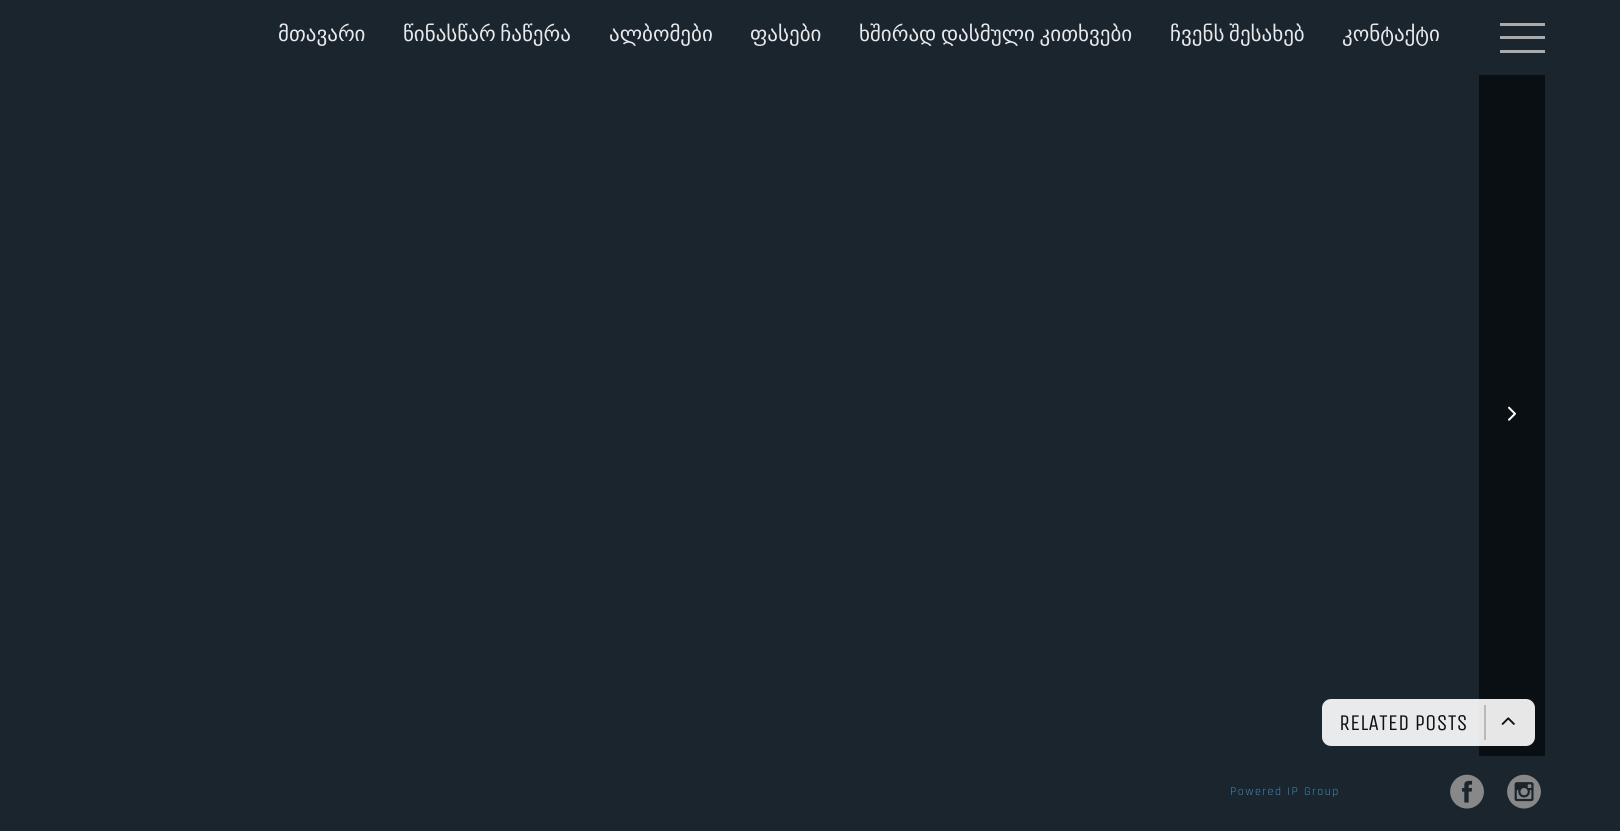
#include <cairo.h>
#include <math.h>
#include <stddef.h>


static void spaced_text(cairo_t *cr, double x, double y, const char *s, double letter, double word) {
    cairo_move_to(cr, x, y);
    while (*s) {
        char ch[5] = {0};
        int n = 0;
        do ch[n++] = *s++; while ((*s & 0xC0) == 0x80);
        cairo_show_text(cr, ch);
        cairo_rel_move_to(cr, letter + word * (*ch == ' '), 0);
    }
}

static void round_rect(cairo_t *cr, double x, double y, double w, double h, double r) {
    cairo_new_sub_path(cr);
    cairo_arc(cr, x + w - r, y + h - r, r, 0, M_PI / 2);
    cairo_arc(cr, x + r, y + h - r, r, M_PI / 2, M_PI);
    cairo_arc(cr, x + r, y + r, r, M_PI, 1.5 * M_PI);
    cairo_arc(cr, x + w - r, y + r, r, 1.5 * M_PI, 2 * M_PI);
    cairo_close_path(cr);
}

static void picture(cairo_t *cr, const char *path, double x, double y, double w, double h) {
    cairo_surface_t *image = cairo_image_surface_create_from_png(path);
    cairo_save(cr);
    cairo_set_source_surface(cr, image, x, y);
    cairo_rectangle(cr, x, y, w, h);
    cairo_fill(cr);
    cairo_restore(cr);
    cairo_surface_destroy(image);
}

int main(void) {
    cairo_surface_t *surface = cairo_image_surface_create(CAIRO_FORMAT_RGB24, 1620, 831);
    cairo_t *cr = cairo_create(surface);
    cairo_font_options_t *options = cairo_font_options_create();
    cairo_font_options_set_hint_metrics(options, CAIRO_HINT_METRICS_OFF);
    cairo_font_options_set_hint_style(options, CAIRO_HINT_STYLE_NONE);
    cairo_set_font_options(cr, options);
    cairo_set_miter_limit(cr, 4);
    cairo_set_source_rgb(cr, 0.102, 0.145, 0.18);
    cairo_paint(cr);
    cairo_select_font_face(cr, "DejaVu Sans", CAIRO_FONT_SLANT_NORMAL, CAIRO_FONT_WEIGHT_NORMAL);
    cairo_set_font_size(cr, 21);
    cairo_set_source_rgb(cr, 0.91, 0.914, 0.918);
    cairo_move_to(cr, 278, 41);
    cairo_show_text(cr, "მთავარი");
    spaced_text(cr, 403, 41, "წინასწარ ჩაწერა", 0, -2);
    cairo_move_to(cr, 609, 41);
    cairo_show_text(cr, "ალბომები");
    cairo_move_to(cr, 750, 41);
    cairo_show_text(cr, "ფასები");
    spaced_text(cr, 859, 41, "ხშირად დასმული კითხვები", 0, -2);
    spaced_text(cr, 1170, 41, "ჩვენს შესახებ", 0, -2);
    cairo_move_to(cr, 1342, 41);
    cairo_show_text(cr, "კონტაქტი");
    cairo_set_source_rgb(cr, 0.667, 0.667, 0.667);
    cairo_rectangle(cr, 1500, 23, 45, 3);
    cairo_fill(cr);
    cairo_rectangle(cr, 1500, 36, 45, 3);
    cairo_fill(cr);
    cairo_rectangle(cr, 1500, 50, 45, 3);
    cairo_fill(cr);
    cairo_set_source_rgb(cr, 0.039, 0.059, 0.071);
    cairo_rectangle(cr, 1479, 75, 66, 681);
    cairo_fill(cr);
    cairo_set_source_rgba(cr, 1, 1, 1, 0.9);
    round_rect(cr, 1322, 699, 213, 47, 9);
    cairo_fill(cr);
    cairo_set_source_rgb(cr, 0.722, 0.725, 0.725);
    cairo_rectangle(cr, 1484, 705, 2, 35);
    cairo_fill(cr);
    cairo_select_font_face(cr, "Unica One", CAIRO_FONT_SLANT_NORMAL, CAIRO_FONT_WEIGHT_NORMAL);
    cairo_set_font_size(cr, 22.5);
    cairo_set_source_rgb(cr, 0.067, 0.067, 0.067);
    cairo_move_to(cr, 1339, 730);
    cairo_show_text(cr, "RELATED POSTS");
    picture(cr, "img1.png", 1501, 717, 14, 8);
    picture(cr, "img2.png", 1508, 406, 8, 15);
    cairo_select_font_face(cr, "Rajdhani", CAIRO_FONT_SLANT_NORMAL, CAIRO_FONT_WEIGHT_NORMAL);
    cairo_set_font_size(cr, 12);
    cairo_set_source_rgb(cr, 0.243, 0.537, 0.729);
    spaced_text(cr, 1230, 795, "Powered IP Group", 1.5, 0);
    cairo_set_source_rgb(cr, 0.133, 0.133, 0.133);
    cairo_rectangle(cr, 1385, 771, 2, 48);
    cairo_fill(cr);
    picture(cr, "img3.png", 1450, 774, 34, 35);
    picture(cr, "img4.png", 1507, 774, 34, 35);
    cairo_surface_write_to_png(surface, "page.png");
    cairo_font_options_destroy(options);
    cairo_destroy(cr);
    cairo_surface_destroy(surface);
    return 0;
}
